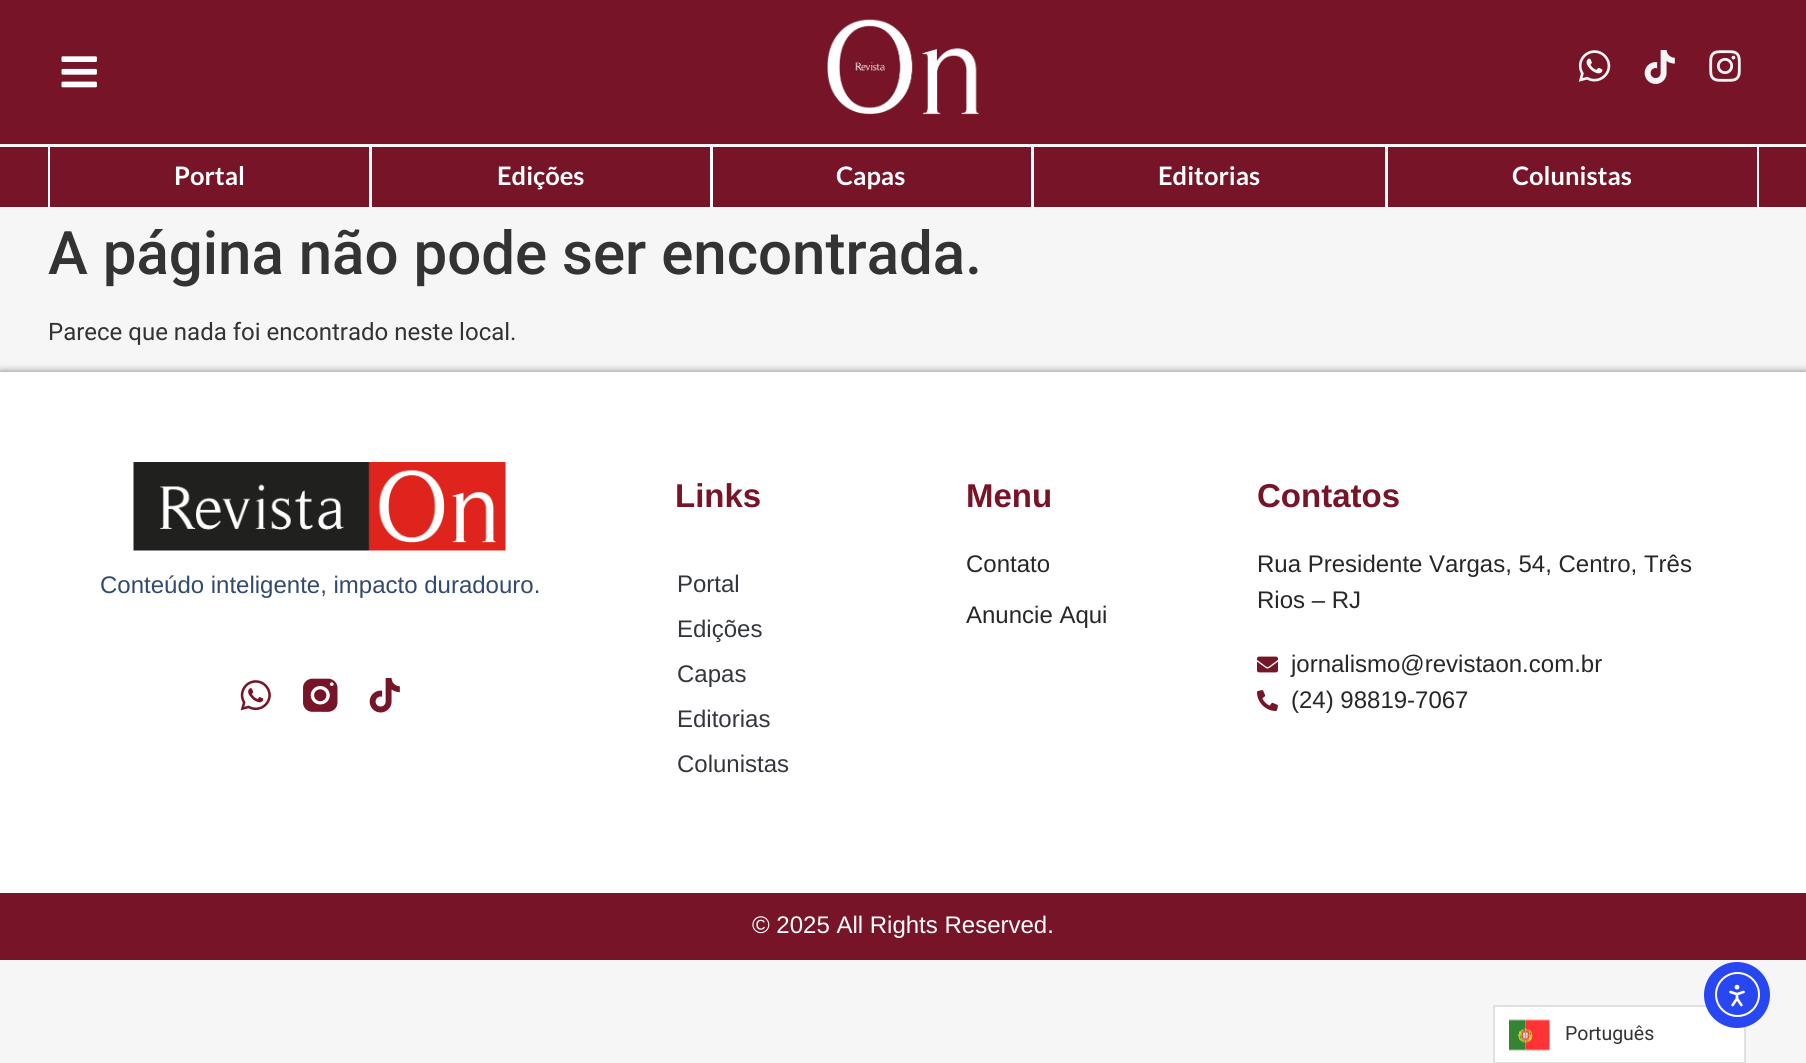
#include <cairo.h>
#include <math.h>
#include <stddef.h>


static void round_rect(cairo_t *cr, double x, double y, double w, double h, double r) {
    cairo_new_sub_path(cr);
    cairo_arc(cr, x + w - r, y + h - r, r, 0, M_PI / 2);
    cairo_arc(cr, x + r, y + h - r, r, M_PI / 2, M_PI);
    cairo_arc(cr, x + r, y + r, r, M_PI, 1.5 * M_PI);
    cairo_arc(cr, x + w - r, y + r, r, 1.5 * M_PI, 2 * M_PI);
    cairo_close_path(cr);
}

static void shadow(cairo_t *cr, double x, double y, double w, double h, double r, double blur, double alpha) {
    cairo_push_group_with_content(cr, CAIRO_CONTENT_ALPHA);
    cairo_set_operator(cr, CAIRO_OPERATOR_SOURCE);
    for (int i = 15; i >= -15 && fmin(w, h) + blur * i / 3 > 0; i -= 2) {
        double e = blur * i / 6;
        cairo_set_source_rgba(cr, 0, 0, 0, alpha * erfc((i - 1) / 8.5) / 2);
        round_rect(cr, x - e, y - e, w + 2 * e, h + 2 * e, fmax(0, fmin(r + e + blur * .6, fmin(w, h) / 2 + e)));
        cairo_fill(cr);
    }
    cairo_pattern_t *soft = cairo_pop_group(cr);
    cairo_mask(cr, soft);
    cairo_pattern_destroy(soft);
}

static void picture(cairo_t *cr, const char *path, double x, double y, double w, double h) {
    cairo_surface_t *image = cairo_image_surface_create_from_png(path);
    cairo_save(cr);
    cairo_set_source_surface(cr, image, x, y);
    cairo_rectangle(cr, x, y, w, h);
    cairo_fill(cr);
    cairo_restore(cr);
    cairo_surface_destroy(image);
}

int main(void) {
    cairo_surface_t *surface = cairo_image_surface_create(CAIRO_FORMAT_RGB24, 1806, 1063);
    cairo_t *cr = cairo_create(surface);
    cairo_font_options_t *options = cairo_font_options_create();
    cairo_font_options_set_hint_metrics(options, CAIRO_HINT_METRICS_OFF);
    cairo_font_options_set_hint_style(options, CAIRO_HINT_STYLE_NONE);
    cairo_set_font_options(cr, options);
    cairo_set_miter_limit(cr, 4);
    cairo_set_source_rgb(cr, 0.961, 0.961, 0.961);
    cairo_paint(cr);
    cairo_set_source_rgb(cr, 0.467, 0.082, 0.157);
    cairo_rectangle(cr, 0, 0, 1806, 144);
    cairo_fill(cr);
    picture(cr, "img1.png", 61, 56, 36, 32);
    picture(cr, "img2.png", 827, 19, 152, 96);
    picture(cr, "img3.png", 1578, 50, 33, 32);
    picture(cr, "img4.png", 1644, 50, 31, 34);
    picture(cr, "img5.png", 1709, 50, 32, 32);
    cairo_rectangle(cr, 0, 147, 1806, 60);
    cairo_fill(cr);
    cairo_set_source_rgb(cr, 1, 1, 1);
    cairo_rectangle(cr, 1757, 147, 2, 60);
    cairo_fill(cr);
    cairo_rectangle(cr, 48, 147, 2, 60);
    cairo_fill(cr);
    cairo_select_font_face(cr, "Lato", CAIRO_FONT_SLANT_NORMAL, CAIRO_FONT_WEIGHT_BOLD);
    cairo_set_font_size(cr, 25.5);
    cairo_move_to(cr, 174, 185);
    cairo_show_text(cr, "Portal");
    cairo_rectangle(cr, 369, 147, 3, 60);
    cairo_fill(cr);
    cairo_move_to(cr, 497, 185);
    cairo_show_text(cr, "Edições");
    cairo_rectangle(cr, 710, 147, 3, 60);
    cairo_fill(cr);
    cairo_move_to(cr, 836, 185);
    cairo_show_text(cr, "Capas");
    cairo_rectangle(cr, 1031, 147, 3, 60);
    cairo_fill(cr);
    cairo_move_to(cr, 1158, 185);
    cairo_show_text(cr, "Editorias");
    cairo_rectangle(cr, 1385, 147, 3, 60);
    cairo_fill(cr);
    cairo_move_to(cr, 1512, 185);
    cairo_show_text(cr, "Colunistas");
    cairo_select_font_face(cr, "Roboto Medium", CAIRO_FONT_SLANT_NORMAL, CAIRO_FONT_WEIGHT_NORMAL);
    cairo_set_font_size(cr, 60);
    cairo_set_source_rgb(cr, 0.2, 0.2, 0.2);
    cairo_move_to(cr, 48, 274);
    cairo_show_text(cr, "A página não pode ser encontrada.");
    cairo_select_font_face(cr, "Roboto", CAIRO_FONT_SLANT_NORMAL, CAIRO_FONT_WEIGHT_NORMAL);
    cairo_set_font_size(cr, 24);
    cairo_move_to(cr, 48, 340);
    cairo_show_text(cr, "Parece que nada foi encontrado neste local.");
    cairo_set_source_rgb(cr, 0, 0, 0);
    shadow(cr, 0, 372, 1806, 521, 0, 4, 0.5);
    cairo_set_source_rgb(cr, 1, 1, 1);
    cairo_rectangle(cr, 0, 372, 1806, 521);
    cairo_fill(cr);
    picture(cr, "img6.png", 133, 462, 373, 89);
    cairo_select_font_face(cr, "Liberation Sans", CAIRO_FONT_SLANT_NORMAL, CAIRO_FONT_WEIGHT_NORMAL);
    cairo_set_source_rgb(cr, 0.196, 0.29, 0.427);
    cairo_move_to(cr, 100, 593);
    cairo_show_text(cr, "Conteúdo inteligente, impacto duradouro.");
    picture(cr, "img7.png", 240, 680, 31, 31);
    picture(cr, "img8.png", 303, 678, 35, 34);
    picture(cr, "img9.png", 369, 678, 31, 35);
    cairo_select_font_face(cr, "Liberation Sans", CAIRO_FONT_SLANT_NORMAL, CAIRO_FONT_WEIGHT_BOLD);
    cairo_set_font_size(cr, 33);
    cairo_set_source_rgb(cr, 0.467, 0.082, 0.157);
    cairo_move_to(cr, 675, 507);
    cairo_show_text(cr, "Links");
    cairo_select_font_face(cr, "Liberation Sans", CAIRO_FONT_SLANT_NORMAL, CAIRO_FONT_WEIGHT_NORMAL);
    cairo_set_font_size(cr, 24);
    cairo_set_source_rgb(cr, 0.2, 0.216, 0.239);
    cairo_move_to(cr, 677, 592);
    cairo_show_text(cr, "Portal");
    cairo_move_to(cr, 677, 637);
    cairo_show_text(cr, "Edições");
    cairo_move_to(cr, 677, 682);
    cairo_show_text(cr, "Capas");
    cairo_move_to(cr, 677, 727);
    cairo_show_text(cr, "Editorias");
    cairo_move_to(cr, 677, 772);
    cairo_show_text(cr, "Colunistas");
    cairo_select_font_face(cr, "Liberation Sans", CAIRO_FONT_SLANT_NORMAL, CAIRO_FONT_WEIGHT_BOLD);
    cairo_set_font_size(cr, 33);
    cairo_set_source_rgb(cr, 0.467, 0.082, 0.157);
    cairo_move_to(cr, 966, 507);
    cairo_show_text(cr, "Menu");
    cairo_select_font_face(cr, "Liberation Sans", CAIRO_FONT_SLANT_NORMAL, CAIRO_FONT_WEIGHT_NORMAL);
    cairo_set_font_size(cr, 24);
    cairo_set_source_rgb(cr, 0.153, 0.153, 0.153);
    cairo_move_to(cr, 966, 572);
    cairo_show_text(cr, "Contato");
    cairo_move_to(cr, 966, 623);
    cairo_show_text(cr, "Anuncie Aqui");
    cairo_select_font_face(cr, "Liberation Sans", CAIRO_FONT_SLANT_NORMAL, CAIRO_FONT_WEIGHT_BOLD);
    cairo_set_font_size(cr, 33);
    cairo_set_source_rgb(cr, 0.467, 0.082, 0.157);
    cairo_move_to(cr, 1257, 507);
    cairo_show_text(cr, "Contatos");
    cairo_select_font_face(cr, "Liberation Sans", CAIRO_FONT_SLANT_NORMAL, CAIRO_FONT_WEIGHT_NORMAL);
    cairo_set_font_size(cr, 24);
    cairo_set_source_rgb(cr, 0.153, 0.153, 0.153);
    cairo_move_to(cr, 1257, 572);
    cairo_show_text(cr, "Rua Presidente Vargas, 54, Centro, Três");
    cairo_move_to(cr, 1257, 608);
    cairo_show_text(cr, "Rios – RJ");
    picture(cr, "img10.png", 1257, 656, 21, 17);
    cairo_move_to(cr, 1291, 672);
    cairo_show_text(cr, "jornalismo@revistaon.com.br");
    picture(cr, "img11.png", 1257, 690, 21, 21);
    cairo_move_to(cr, 1291, 708);
    cairo_show_text(cr, "(24) 98819-7067");
    cairo_set_source_rgb(cr, 0.467, 0.082, 0.157);
    cairo_rectangle(cr, 0, 893, 1806, 67);
    cairo_fill(cr);
    cairo_set_source_rgb(cr, 1, 1, 1);
    cairo_move_to(cr, 752, 933);
    cairo_show_text(cr, "© 2025 All Rights Reserved.");
    cairo_rectangle(cr, 1494, 1006, 251, 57);
    cairo_fill_preserve(cr);
    cairo_set_source_rgb(cr, 0.878, 0.878, 0.878);
    cairo_stroke(cr);
    cairo_set_source_rgb(cr, 0.157, 0.278, 0.953);
    cairo_arc(cr, 1737, 995, 33, 0, 2 * M_PI);
    cairo_fill(cr);
    cairo_arc(cr, 1737.5, 994.5, 21.5, 0, 2 * M_PI);
    cairo_set_source_rgb(cr, 1, 1, 1);
    cairo_stroke(cr);
    picture(cr, "img12.png", 1729, 984, 16, 23);
    picture(cr, "img13.png", 1509, 1019, 41, 32);
    cairo_select_font_face(cr, "Roboto", CAIRO_FONT_SLANT_NORMAL, CAIRO_FONT_WEIGHT_NORMAL);
    cairo_set_font_size(cr, 19.5);
    cairo_set_source_rgb(cr, 0.2, 0.2, 0.2);
    cairo_move_to(cr, 1565, 1040);
    cairo_show_text(cr, "Português");
    cairo_surface_write_to_png(surface, "page.png");
    cairo_font_options_destroy(options);
    cairo_destroy(cr);
    cairo_surface_destroy(surface);
    return 0;
}
